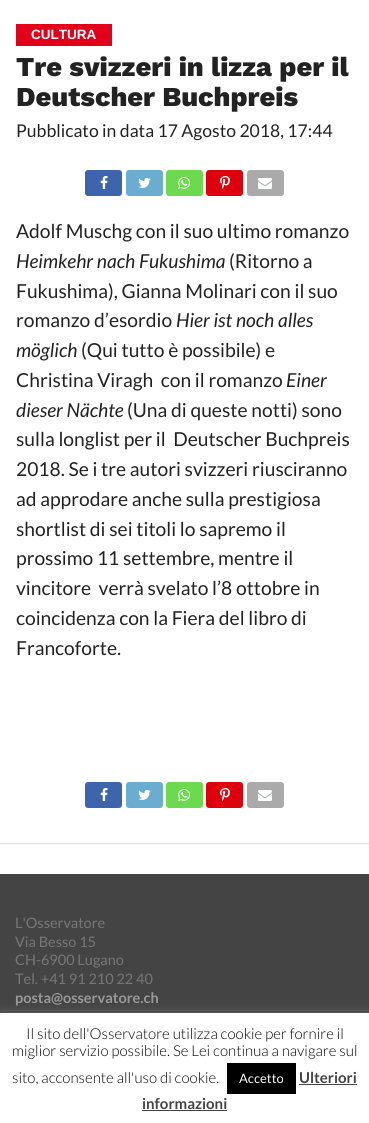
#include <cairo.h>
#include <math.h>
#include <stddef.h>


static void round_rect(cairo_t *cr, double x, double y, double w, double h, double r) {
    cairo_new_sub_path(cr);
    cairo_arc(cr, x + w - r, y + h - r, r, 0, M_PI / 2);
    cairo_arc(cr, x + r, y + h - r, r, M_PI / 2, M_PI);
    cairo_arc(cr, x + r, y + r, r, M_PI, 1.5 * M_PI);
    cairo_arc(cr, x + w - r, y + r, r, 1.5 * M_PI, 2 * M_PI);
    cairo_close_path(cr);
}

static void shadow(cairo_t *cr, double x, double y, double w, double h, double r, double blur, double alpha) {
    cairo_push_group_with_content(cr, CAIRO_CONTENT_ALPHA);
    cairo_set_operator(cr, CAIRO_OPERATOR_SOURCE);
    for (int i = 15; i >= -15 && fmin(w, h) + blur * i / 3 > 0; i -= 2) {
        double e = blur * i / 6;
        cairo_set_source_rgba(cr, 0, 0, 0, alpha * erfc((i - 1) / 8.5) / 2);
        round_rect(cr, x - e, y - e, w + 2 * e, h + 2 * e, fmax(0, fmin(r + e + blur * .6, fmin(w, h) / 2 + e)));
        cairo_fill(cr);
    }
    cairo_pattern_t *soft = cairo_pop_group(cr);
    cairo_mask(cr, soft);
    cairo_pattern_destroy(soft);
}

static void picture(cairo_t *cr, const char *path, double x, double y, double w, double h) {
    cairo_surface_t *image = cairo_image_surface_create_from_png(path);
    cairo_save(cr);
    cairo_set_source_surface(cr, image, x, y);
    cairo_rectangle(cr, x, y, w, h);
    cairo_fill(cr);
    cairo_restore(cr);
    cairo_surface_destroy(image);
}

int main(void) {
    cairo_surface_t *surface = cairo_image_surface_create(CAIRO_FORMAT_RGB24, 369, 1123);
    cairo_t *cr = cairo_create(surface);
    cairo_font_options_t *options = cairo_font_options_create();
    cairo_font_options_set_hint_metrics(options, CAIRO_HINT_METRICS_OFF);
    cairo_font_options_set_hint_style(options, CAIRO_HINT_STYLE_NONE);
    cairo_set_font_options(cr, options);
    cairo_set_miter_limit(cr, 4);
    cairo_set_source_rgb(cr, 1, 1, 1);
    cairo_paint(cr);
    cairo_set_source_rgb(cr, 0.867, 0.867, 0.867);
    cairo_rectangle(cr, 0, 843, 369, 1);
    cairo_fill(cr);
    cairo_set_source_rgb(cr, 0.89, 0, 0.106);
    cairo_rectangle(cr, 16, 24, 96, 22);
    cairo_fill(cr);
    cairo_select_font_face(cr, "Liberation Sans", CAIRO_FONT_SLANT_NORMAL, CAIRO_FONT_WEIGHT_BOLD);
    cairo_set_font_size(cr, 13.5);
    cairo_set_source_rgb(cr, 1, 1, 1);
    cairo_move_to(cr, 31, 39);
    cairo_show_text(cr, "CULTURA");
    cairo_select_font_face(cr, "Work Sans ExtraBold", CAIRO_FONT_SLANT_NORMAL, CAIRO_FONT_WEIGHT_NORMAL);
    cairo_set_font_size(cr, 27.25);
    cairo_set_source_rgb(cr, 0.133, 0.133, 0.133);
    cairo_move_to(cr, 16, 76);
    cairo_show_text(cr, "Tre svizzeri in lizza per il");
    cairo_move_to(cr, 16, 106);
    cairo_show_text(cr, "Deutscher Buchpreis");
    cairo_select_font_face(cr, "Lato", CAIRO_FONT_SLANT_NORMAL, CAIRO_FONT_WEIGHT_NORMAL);
    cairo_set_font_size(cr, 17.6);
    cairo_move_to(cr, 16, 137);
    cairo_show_text(cr, "Pubblicato in data 17 Agosto 2018, 17:44");
    cairo_set_source_rgb(cr, 0.243, 0.392, 0.678);
    round_rect(cr, 85, 170, 37, 26, 3);
    cairo_fill(cr);
    picture(cr, "img1.png", 100, 176, 8, 13);
    cairo_set_source_rgb(cr, 0.416, 0.678, 0.82);
    round_rect(cr, 126, 170, 37, 26, 3);
    cairo_fill(cr);
    picture(cr, "img2.png", 138, 178, 13, 10);
    cairo_set_source_rgb(cr, 0.424, 0.851, 0.306);
    round_rect(cr, 166, 170, 37, 26, 3);
    cairo_fill(cr);
    picture(cr, "img3.png", 178, 177, 12, 12);
    cairo_set_source_rgb(cr, 0.871, 0.004, 0.051);
    round_rect(cr, 206, 170, 37, 26, 3);
    cairo_fill(cr);
    picture(cr, "img4.png", 220, 176, 10, 13);
    cairo_set_source_rgb(cr, 0.667, 0.667, 0.667);
    round_rect(cr, 247, 170, 37, 26, 3);
    cairo_fill(cr);
    picture(cr, "img5.png", 258, 178, 14, 11);
    cairo_set_font_size(cr, 19.25);
    cairo_set_source_rgb(cr, 0.133, 0.133, 0.133);
    cairo_move_to(cr, 16, 238);
    cairo_show_text(cr, "Adolf Muschg con il suo ultimo romanzo");
    cairo_select_font_face(cr, "Lato", CAIRO_FONT_SLANT_ITALIC, CAIRO_FONT_WEIGHT_NORMAL);
    cairo_move_to(cr, 16, 268);
    cairo_show_text(cr, "Heimkehr nach Fukushima");
    cairo_select_font_face(cr, "Lato", CAIRO_FONT_SLANT_NORMAL, CAIRO_FONT_WEIGHT_NORMAL);
    cairo_move_to(cr, 229, 268);
    cairo_show_text(cr, "(Ritorno a");
    cairo_move_to(cr, 16, 298);
    cairo_show_text(cr, "Fukushima), Gianna Molinari con il suo");
    cairo_move_to(cr, 16, 327);
    cairo_show_text(cr, "romanzo d’esordio");
    cairo_select_font_face(cr, "Lato", CAIRO_FONT_SLANT_ITALIC, CAIRO_FONT_WEIGHT_NORMAL);
    cairo_move_to(cr, 176, 327);
    cairo_show_text(cr, "Hier ist noch alles");
    cairo_move_to(cr, 16, 357);
    cairo_show_text(cr, "möglich");
    cairo_select_font_face(cr, "Lato", CAIRO_FONT_SLANT_NORMAL, CAIRO_FONT_WEIGHT_NORMAL);
    cairo_move_to(cr, 81, 357);
    cairo_show_text(cr, "(Qui tutto è possibile) e");
    cairo_move_to(cr, 16, 387);
    cairo_show_text(cr, "Christina Viragh  con il romanzo");
    cairo_select_font_face(cr, "Lato", CAIRO_FONT_SLANT_ITALIC, CAIRO_FONT_WEIGHT_NORMAL);
    cairo_move_to(cr, 286, 387);
    cairo_show_text(cr, "Einer");
    cairo_move_to(cr, 16, 417);
    cairo_show_text(cr, "dieser Nächte");
    cairo_select_font_face(cr, "Lato", CAIRO_FONT_SLANT_NORMAL, CAIRO_FONT_WEIGHT_NORMAL);
    cairo_move_to(cr, 127, 417);
    cairo_show_text(cr, "(Una di queste notti) sono");
    cairo_move_to(cr, 16, 446);
    cairo_show_text(cr, "sulla longlist per il  Deutscher Buchpreis");
    cairo_move_to(cr, 16, 476);
    cairo_show_text(cr, "2018. Se i tre autori svizzeri riusciranno");
    cairo_move_to(cr, 16, 506);
    cairo_show_text(cr, "ad approdare anche sulla prestigiosa");
    cairo_move_to(cr, 16, 536);
    cairo_show_text(cr, "shortlist di sei titoli lo sapremo il");
    cairo_move_to(cr, 16, 565);
    cairo_show_text(cr, "prossimo 11 settembre, mentre il");
    cairo_move_to(cr, 16, 595);
    cairo_show_text(cr, "vincitore  verrà svelato l’8 ottobre in");
    cairo_move_to(cr, 16, 625);
    cairo_show_text(cr, "coincidenza con la Fiera del libro di");
    cairo_move_to(cr, 16, 655);
    cairo_show_text(cr, "Francoforte.");
    cairo_set_source_rgb(cr, 0.243, 0.392, 0.678);
    round_rect(cr, 85, 782, 37, 26, 3);
    cairo_fill(cr);
    picture(cr, "img1.png", 100, 788, 8, 13);
    cairo_set_source_rgb(cr, 0.416, 0.678, 0.82);
    round_rect(cr, 126, 782, 37, 26, 3);
    cairo_fill(cr);
    picture(cr, "img2.png", 138, 790, 13, 10);
    cairo_set_source_rgb(cr, 0.424, 0.851, 0.306);
    round_rect(cr, 166, 782, 37, 26, 3);
    cairo_fill(cr);
    picture(cr, "img3.png", 178, 789, 12, 12);
    cairo_set_source_rgb(cr, 0.871, 0.004, 0.051);
    round_rect(cr, 206, 782, 37, 26, 3);
    cairo_fill(cr);
    picture(cr, "img4.png", 220, 788, 10, 13);
    cairo_set_source_rgb(cr, 0.667, 0.667, 0.667);
    round_rect(cr, 247, 782, 37, 26, 3);
    cairo_fill(cr);
    picture(cr, "img5.png", 258, 790, 14, 11);
    cairo_set_source_rgb(cr, 0.267, 0.267, 0.267);
    cairo_rectangle(cr, 0, 874, 369, 139);
    cairo_fill(cr);
    cairo_set_font_size(cr, 14.5);
    cairo_set_source_rgb(cr, 0.467, 0.467, 0.467);
    cairo_move_to(cr, 15, 928);
    cairo_show_text(cr, "L'Osservatore");
    cairo_move_to(cr, 15, 947);
    cairo_show_text(cr, "Via Besso 15");
    cairo_move_to(cr, 15, 965);
    cairo_show_text(cr, "CH-6900 Lugano");
    cairo_move_to(cr, 15, 984);
    cairo_show_text(cr, "Tel. +41 91 210 22 40");
    cairo_select_font_face(cr, "Lato", CAIRO_FONT_SLANT_NORMAL, CAIRO_FONT_WEIGHT_BOLD);
    cairo_set_source_rgb(cr, 0.6, 0.6, 0.6);
    cairo_move_to(cr, 15, 1003);
    cairo_show_text(cr, "posta@osservatore.ch");
    cairo_set_source_rgb(cr, 0.675, 0.671, 0.671);
    shadow(cr, 0, 1012, 369, 110, 0, 5, 0.3);
    cairo_set_source_rgb(cr, 1, 1, 1);
    cairo_rectangle(cr, 0, 1013, 369, 110);
    cairo_fill(cr);
    cairo_select_font_face(cr, "Lato Light", CAIRO_FONT_SLANT_NORMAL, CAIRO_FONT_WEIGHT_NORMAL);
    cairo_set_font_size(cr, 15);
    cairo_set_source_rgb(cr, 0, 0, 0);
    cairo_move_to(cr, 26, 1039);
    cairo_show_text(cr, "Il sito dell'Osservatore utilizza cookie per fornire il");
    cairo_move_to(cr, 12, 1056);
    cairo_show_text(cr, "miglior servizio possibile. Se Lei continua a navigare sul");
    cairo_move_to(cr, 12, 1083);
    cairo_show_text(cr, "sito, acconsente all'uso di cookie.");
    cairo_rectangle(cr, 227, 1063, 69, 31);
    cairo_fill(cr);
    cairo_select_font_face(cr, "Lato", CAIRO_FONT_SLANT_NORMAL, CAIRO_FONT_WEIGHT_NORMAL);
    cairo_set_font_size(cr, 13);
    cairo_set_source_rgb(cr, 1, 1, 1);
    cairo_move_to(cr, 239, 1083);
    cairo_show_text(cr, "Accetto");
    cairo_select_font_face(cr, "Lato", CAIRO_FONT_SLANT_NORMAL, CAIRO_FONT_WEIGHT_BOLD);
    cairo_set_font_size(cr, 15);
    cairo_set_source_rgb(cr, 0.267, 0.267, 0.267);
    cairo_move_to(cr, 299, 1083);
    cairo_show_text(cr, "Ulteriori");
    cairo_rectangle(cr, 299, 1084, 58, 1);
    cairo_fill(cr);
    cairo_move_to(cr, 142, 1109);
    cairo_show_text(cr, "informazioni");
    cairo_rectangle(cr, 142, 1110, 85, 1);
    cairo_fill(cr);
    cairo_surface_write_to_png(surface, "page.png");
    cairo_font_options_destroy(options);
    cairo_destroy(cr);
    cairo_surface_destroy(surface);
    return 0;
}
